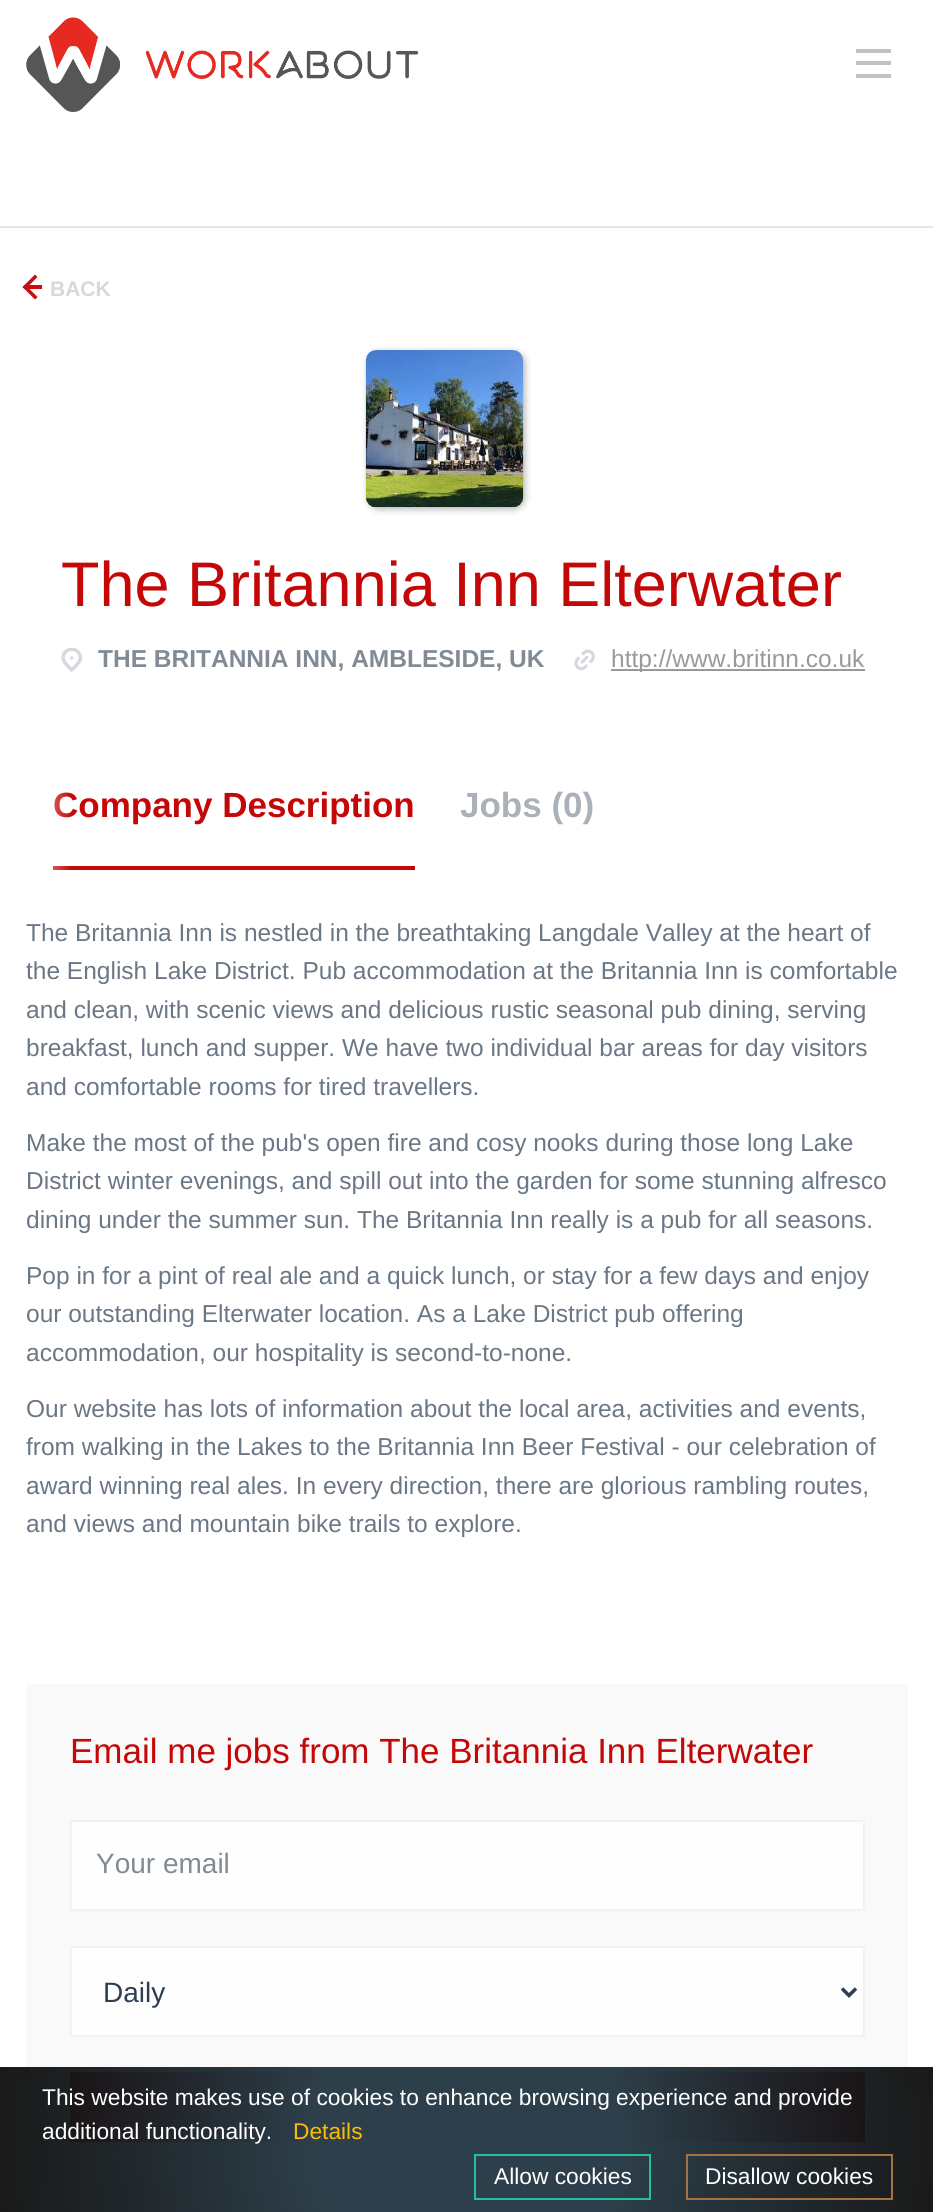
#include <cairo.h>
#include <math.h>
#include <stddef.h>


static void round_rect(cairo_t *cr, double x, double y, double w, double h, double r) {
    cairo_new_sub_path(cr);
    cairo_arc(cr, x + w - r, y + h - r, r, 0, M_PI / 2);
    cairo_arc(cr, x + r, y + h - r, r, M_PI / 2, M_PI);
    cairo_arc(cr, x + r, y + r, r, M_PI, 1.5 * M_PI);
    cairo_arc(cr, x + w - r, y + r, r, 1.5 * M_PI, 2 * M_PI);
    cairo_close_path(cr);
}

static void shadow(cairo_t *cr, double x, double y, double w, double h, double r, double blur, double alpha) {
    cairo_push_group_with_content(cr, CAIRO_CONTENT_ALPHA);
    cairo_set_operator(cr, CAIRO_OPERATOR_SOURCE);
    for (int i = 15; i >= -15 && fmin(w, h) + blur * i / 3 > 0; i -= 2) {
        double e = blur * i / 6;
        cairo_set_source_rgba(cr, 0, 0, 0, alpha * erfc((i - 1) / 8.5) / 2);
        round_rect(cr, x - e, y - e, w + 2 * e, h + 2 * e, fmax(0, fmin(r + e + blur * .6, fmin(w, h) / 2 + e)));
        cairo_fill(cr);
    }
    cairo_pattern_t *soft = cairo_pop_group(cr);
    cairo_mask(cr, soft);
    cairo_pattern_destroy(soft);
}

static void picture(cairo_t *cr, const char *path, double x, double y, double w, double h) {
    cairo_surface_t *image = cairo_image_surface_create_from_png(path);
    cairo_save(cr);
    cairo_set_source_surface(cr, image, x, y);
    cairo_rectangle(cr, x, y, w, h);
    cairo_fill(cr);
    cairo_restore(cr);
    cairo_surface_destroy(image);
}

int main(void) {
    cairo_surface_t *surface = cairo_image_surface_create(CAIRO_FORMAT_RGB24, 933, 2212);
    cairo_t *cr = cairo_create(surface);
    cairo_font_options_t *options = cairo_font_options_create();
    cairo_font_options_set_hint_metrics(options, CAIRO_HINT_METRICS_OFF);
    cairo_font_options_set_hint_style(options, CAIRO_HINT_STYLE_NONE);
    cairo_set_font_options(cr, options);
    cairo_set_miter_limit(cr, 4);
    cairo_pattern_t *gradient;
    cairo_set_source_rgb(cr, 1, 1, 1);
    cairo_paint(cr);
    cairo_set_source_rgb(cr, 0.894, 0.902, 0.91);
    cairo_rectangle(cr, 0, 226, 933, 2);
    cairo_fill(cr);
    picture(cr, "img1.png", 26, 17, 393, 95);
    cairo_set_source_rgb(cr, 0.761, 0.761, 0.761);
    cairo_rectangle(cr, 856, 61, 35, 4);
    cairo_fill(cr);
    cairo_rectangle(cr, 856, 49, 35, 4);
    cairo_fill(cr);
    cairo_rectangle(cr, 856, 74, 35, 4);
    cairo_fill(cr);
    cairo_set_source_rgb(cr, 0.796, 0.047, 0.047);
    cairo_new_path(cr);
    cairo_move_to(cr, 25, 284.5);
    cairo_line_to(cr, 37.5, 297);
    cairo_line_to(cr, 35, 299.5);
    cairo_line_to(cr, 22.5, 287);
    cairo_close_path(cr);
    cairo_fill(cr);
    cairo_new_path(cr);
    cairo_move_to(cr, 35, 274.5);
    cairo_line_to(cr, 37.5, 277);
    cairo_line_to(cr, 25, 289.5);
    cairo_line_to(cr, 22.5, 287);
    cairo_close_path(cr);
    cairo_fill(cr);
    cairo_select_font_face(cr, "Liberation Sans", CAIRO_FONT_SLANT_NORMAL, CAIRO_FONT_WEIGHT_BOLD);
    cairo_set_font_size(cr, 21);
    cairo_set_source_rgb(cr, 0.835, 0.847, 0.863);
    cairo_move_to(cr, 50, 296);
    cairo_show_text(cr, "BACK");
    cairo_set_source_rgb(cr, 0.796, 0.047, 0.047);
    cairo_rectangle(cr, 26, 285, 16, 4);
    cairo_fill(cr);
    cairo_set_source_rgb(cr, 0, 0, 0);
    shadow(cr, 368, 352, 157, 157, 11, 3.5, 0.3);
    cairo_set_source_rgb(cr, 1, 1, 1);
    round_rect(cr, 366, 350, 157, 158, 11);
    cairo_fill(cr);
    picture(cr, "img2.png", 365, 350, 159, 158);
    cairo_select_font_face(cr, "Liberation Sans", CAIRO_FONT_SLANT_NORMAL, CAIRO_FONT_WEIGHT_NORMAL);
    cairo_set_font_size(cr, 63);
    cairo_set_source_rgb(cr, 0.769, 0.035, 0.035);
    cairo_move_to(cr, 61, 606);
    cairo_show_text(cr, "The Britannia Inn Elterwater");
    picture(cr, "img3.png", 61, 648, 21, 24);
    cairo_select_font_face(cr, "Liberation Sans", CAIRO_FONT_SLANT_NORMAL, CAIRO_FONT_WEIGHT_BOLD);
    cairo_set_font_size(cr, 24.5);
    cairo_set_source_rgb(cr, 0.506, 0.545, 0.588);
    cairo_move_to(cr, 98, 667);
    cairo_show_text(cr, "THE BRITANNIA INN, AMBLESIDE, UK");
    picture(cr, "img4.png", 574, 649, 21, 21);
    cairo_set_source_rgb(cr, 0.6, 0.6, 0.6);
    cairo_rectangle(cr, 611, 669, 254, 2);
    cairo_fill(cr);
    cairo_select_font_face(cr, "Liberation Sans", CAIRO_FONT_SLANT_NORMAL, CAIRO_FONT_WEIGHT_NORMAL);
    cairo_move_to(cr, 611, 667);
    cairo_show_text(cr, "http://www.britinn.co.uk");
    cairo_set_source_rgb(cr, 0.769, 0.035, 0.035);
    cairo_rectangle(cr, 53, 866, 362, 4);
    cairo_fill(cr);
    cairo_select_font_face(cr, "Liberation Sans", CAIRO_FONT_SLANT_NORMAL, CAIRO_FONT_WEIGHT_BOLD);
    cairo_set_font_size(cr, 35);
    cairo_move_to(cr, 53, 817);
    cairo_show_text(cr, "Company Description");
    cairo_set_source_rgb(cr, 0.671, 0.694, 0.725);
    cairo_move_to(cr, 460, 817);
    cairo_show_text(cr, "Jobs (0)");
    gradient = cairo_pattern_create_linear(9, 833, 114, 833);
    cairo_pattern_add_color_stop_rgba(gradient, 0, 1, 1, 1, 1);
    cairo_pattern_add_color_stop_rgba(gradient, 0.6, 1, 1, 1, 0);
    cairo_pattern_add_color_stop_rgba(gradient, 1, 1, 1, 1, 0);
    cairo_set_source(cr, gradient);
    cairo_pattern_destroy(gradient);
    cairo_rectangle(cr, 53, 792, 18, 78);
    cairo_fill(cr);
    cairo_select_font_face(cr, "Liberation Sans", CAIRO_FONT_SLANT_NORMAL, CAIRO_FONT_WEIGHT_NORMAL);
    cairo_set_font_size(cr, 24.5);
    cairo_set_source_rgb(cr, 0.42, 0.467, 0.522);
    cairo_move_to(cr, 26, 941);
    cairo_show_text(cr, "The Britannia Inn is nestled in the breathtaking Langdale Valley at the heart of");
    cairo_move_to(cr, 26, 979);
    cairo_show_text(cr, "the English Lake District. Pub accommodation at the Britannia Inn is comfortable");
    cairo_move_to(cr, 26, 1018);
    cairo_show_text(cr, "and clean, with scenic views and delicious rustic seasonal pub dining, serving");
    cairo_move_to(cr, 26, 1056);
    cairo_show_text(cr, "breakfast, lunch and supper. We have two individual bar areas for day visitors");
    cairo_move_to(cr, 26, 1095);
    cairo_show_text(cr, "and comfortable rooms for tired travellers.");
    cairo_move_to(cr, 26, 1151);
    cairo_show_text(cr, "Make the most of the pub's open fire and cosy nooks during those long Lake");
    cairo_move_to(cr, 26, 1189);
    cairo_show_text(cr, "District winter evenings, and spill out into the garden for some stunning alfresco");
    cairo_move_to(cr, 26, 1228);
    cairo_show_text(cr, "dining under the summer sun. The Britannia Inn really is a pub for all seasons.");
    cairo_move_to(cr, 26, 1284);
    cairo_show_text(cr, "Pop in for a pint of real ale and a quick lunch, or stay for a few days and enjoy");
    cairo_move_to(cr, 26, 1322);
    cairo_show_text(cr, "our outstanding Elterwater location. As a Lake District pub offering");
    cairo_move_to(cr, 26, 1361);
    cairo_show_text(cr, "accommodation, our hospitality is second-to-none.");
    cairo_move_to(cr, 26, 1417);
    cairo_show_text(cr, "Our website has lots of information about the local area, activities and events,");
    cairo_move_to(cr, 26, 1455);
    cairo_show_text(cr, "from walking in the Lakes to the Britannia Inn Beer Festival - our celebration of");
    cairo_move_to(cr, 26, 1494);
    cairo_show_text(cr, "award winning real ales. In every direction, there are glorious rambling routes,");
    cairo_move_to(cr, 26, 1532);
    cairo_show_text(cr, "and views and mountain bike trails to explore.");
    cairo_set_source_rgb(cr, 0.973, 0.976, 0.976);
    cairo_rectangle(cr, 26, 1684, 882, 502);
    cairo_fill(cr);
    cairo_set_font_size(cr, 35);
    cairo_set_source_rgb(cr, 0.769, 0.035, 0.035);
    cairo_move_to(cr, 70, 1763);
    cairo_show_text(cr, "Email me jobs from The Britannia Inn Elterwater");
    cairo_set_source_rgb(cr, 0.996, 0.996, 0.996);
    cairo_rectangle(cr, 71, 1821, 793, 89);
    cairo_fill_preserve(cr);
    cairo_set_source_rgb(cr, 0.949, 0.949, 0.949);
    cairo_stroke(cr);
    cairo_set_font_size(cr, 28);
    cairo_set_source_rgb(cr, 0.506, 0.545, 0.588);
    cairo_move_to(cr, 96, 1873);
    cairo_show_text(cr, "Your email");
    cairo_set_source_rgb(cr, 0.996, 0.996, 0.996);
    cairo_rectangle(cr, 71, 1947, 793, 89);
    cairo_fill_preserve(cr);
    cairo_set_source_rgb(cr, 0.949, 0.949, 0.949);
    cairo_stroke(cr);
    cairo_new_path(cr);
    cairo_move_to(cr, 842, 1988.5);
    cairo_line_to(cr, 849, 1995.5);
    cairo_line_to(cr, 856, 1988.5);
    cairo_set_source_rgb(cr, 0.176, 0.243, 0.314);
    cairo_set_line_width(cr, 3.5);
    cairo_stroke(cr);
    cairo_move_to(cr, 103, 2002);
    cairo_show_text(cr, "Daily");
    cairo_set_source_rgb(cr, 0.859, 0.373, 0.373);
    cairo_rectangle(cr, 71, 2073, 793, 68);
    cairo_fill_preserve(cr);
    cairo_set_source_rgb(cr, 0.796, 0.369, 0.369);
    cairo_set_line_width(cr, 2);
    cairo_stroke(cr);
    gradient = cairo_pattern_create_radial(467, 2139, 0, 467, 2139, 473);
    cairo_pattern_add_color_stop_rgba(gradient, 0.33, 0.176, 0.247, 0.29, 1);
    cairo_pattern_add_color_stop_rgba(gradient, 1, 0, 0, 0, 0.9);
    cairo_set_source(cr, gradient);
    cairo_pattern_destroy(gradient);
    cairo_rectangle(cr, 0, 2067, 933, 145);
    cairo_fill(cr);
    cairo_set_font_size(cr, 22.75);
    cairo_set_source_rgb(cr, 1, 1, 1);
    cairo_move_to(cr, 42, 2105);
    cairo_show_text(cr, "This website makes use of cookies to enhance browsing experience and provide");
    cairo_move_to(cr, 42, 2139);
    cairo_show_text(cr, "additional functionality.");
    cairo_set_source_rgb(cr, 0.98, 0.737, 0.035);
    cairo_move_to(cr, 293, 2139);
    cairo_show_text(cr, "Details");
    cairo_rectangle(cr, 475, 2155, 175, 44);
    cairo_set_source_rgb(cr, 0.145, 0.745, 0.627);
    cairo_stroke(cr);
    cairo_set_source_rgb(cr, 1, 1, 1);
    cairo_move_to(cr, 494, 2184);
    cairo_show_text(cr, "Allow cookies");
    cairo_rectangle(cr, 687, 2155, 205, 44);
    cairo_set_source_rgb(cr, 0.647, 0.451, 0.255);
    cairo_stroke(cr);
    cairo_set_source_rgb(cr, 1, 1, 1);
    cairo_move_to(cr, 705, 2184);
    cairo_show_text(cr, "Disallow cookies");
    cairo_surface_write_to_png(surface, "page.png");
    cairo_font_options_destroy(options);
    cairo_destroy(cr);
    cairo_surface_destroy(surface);
    return 0;
}
